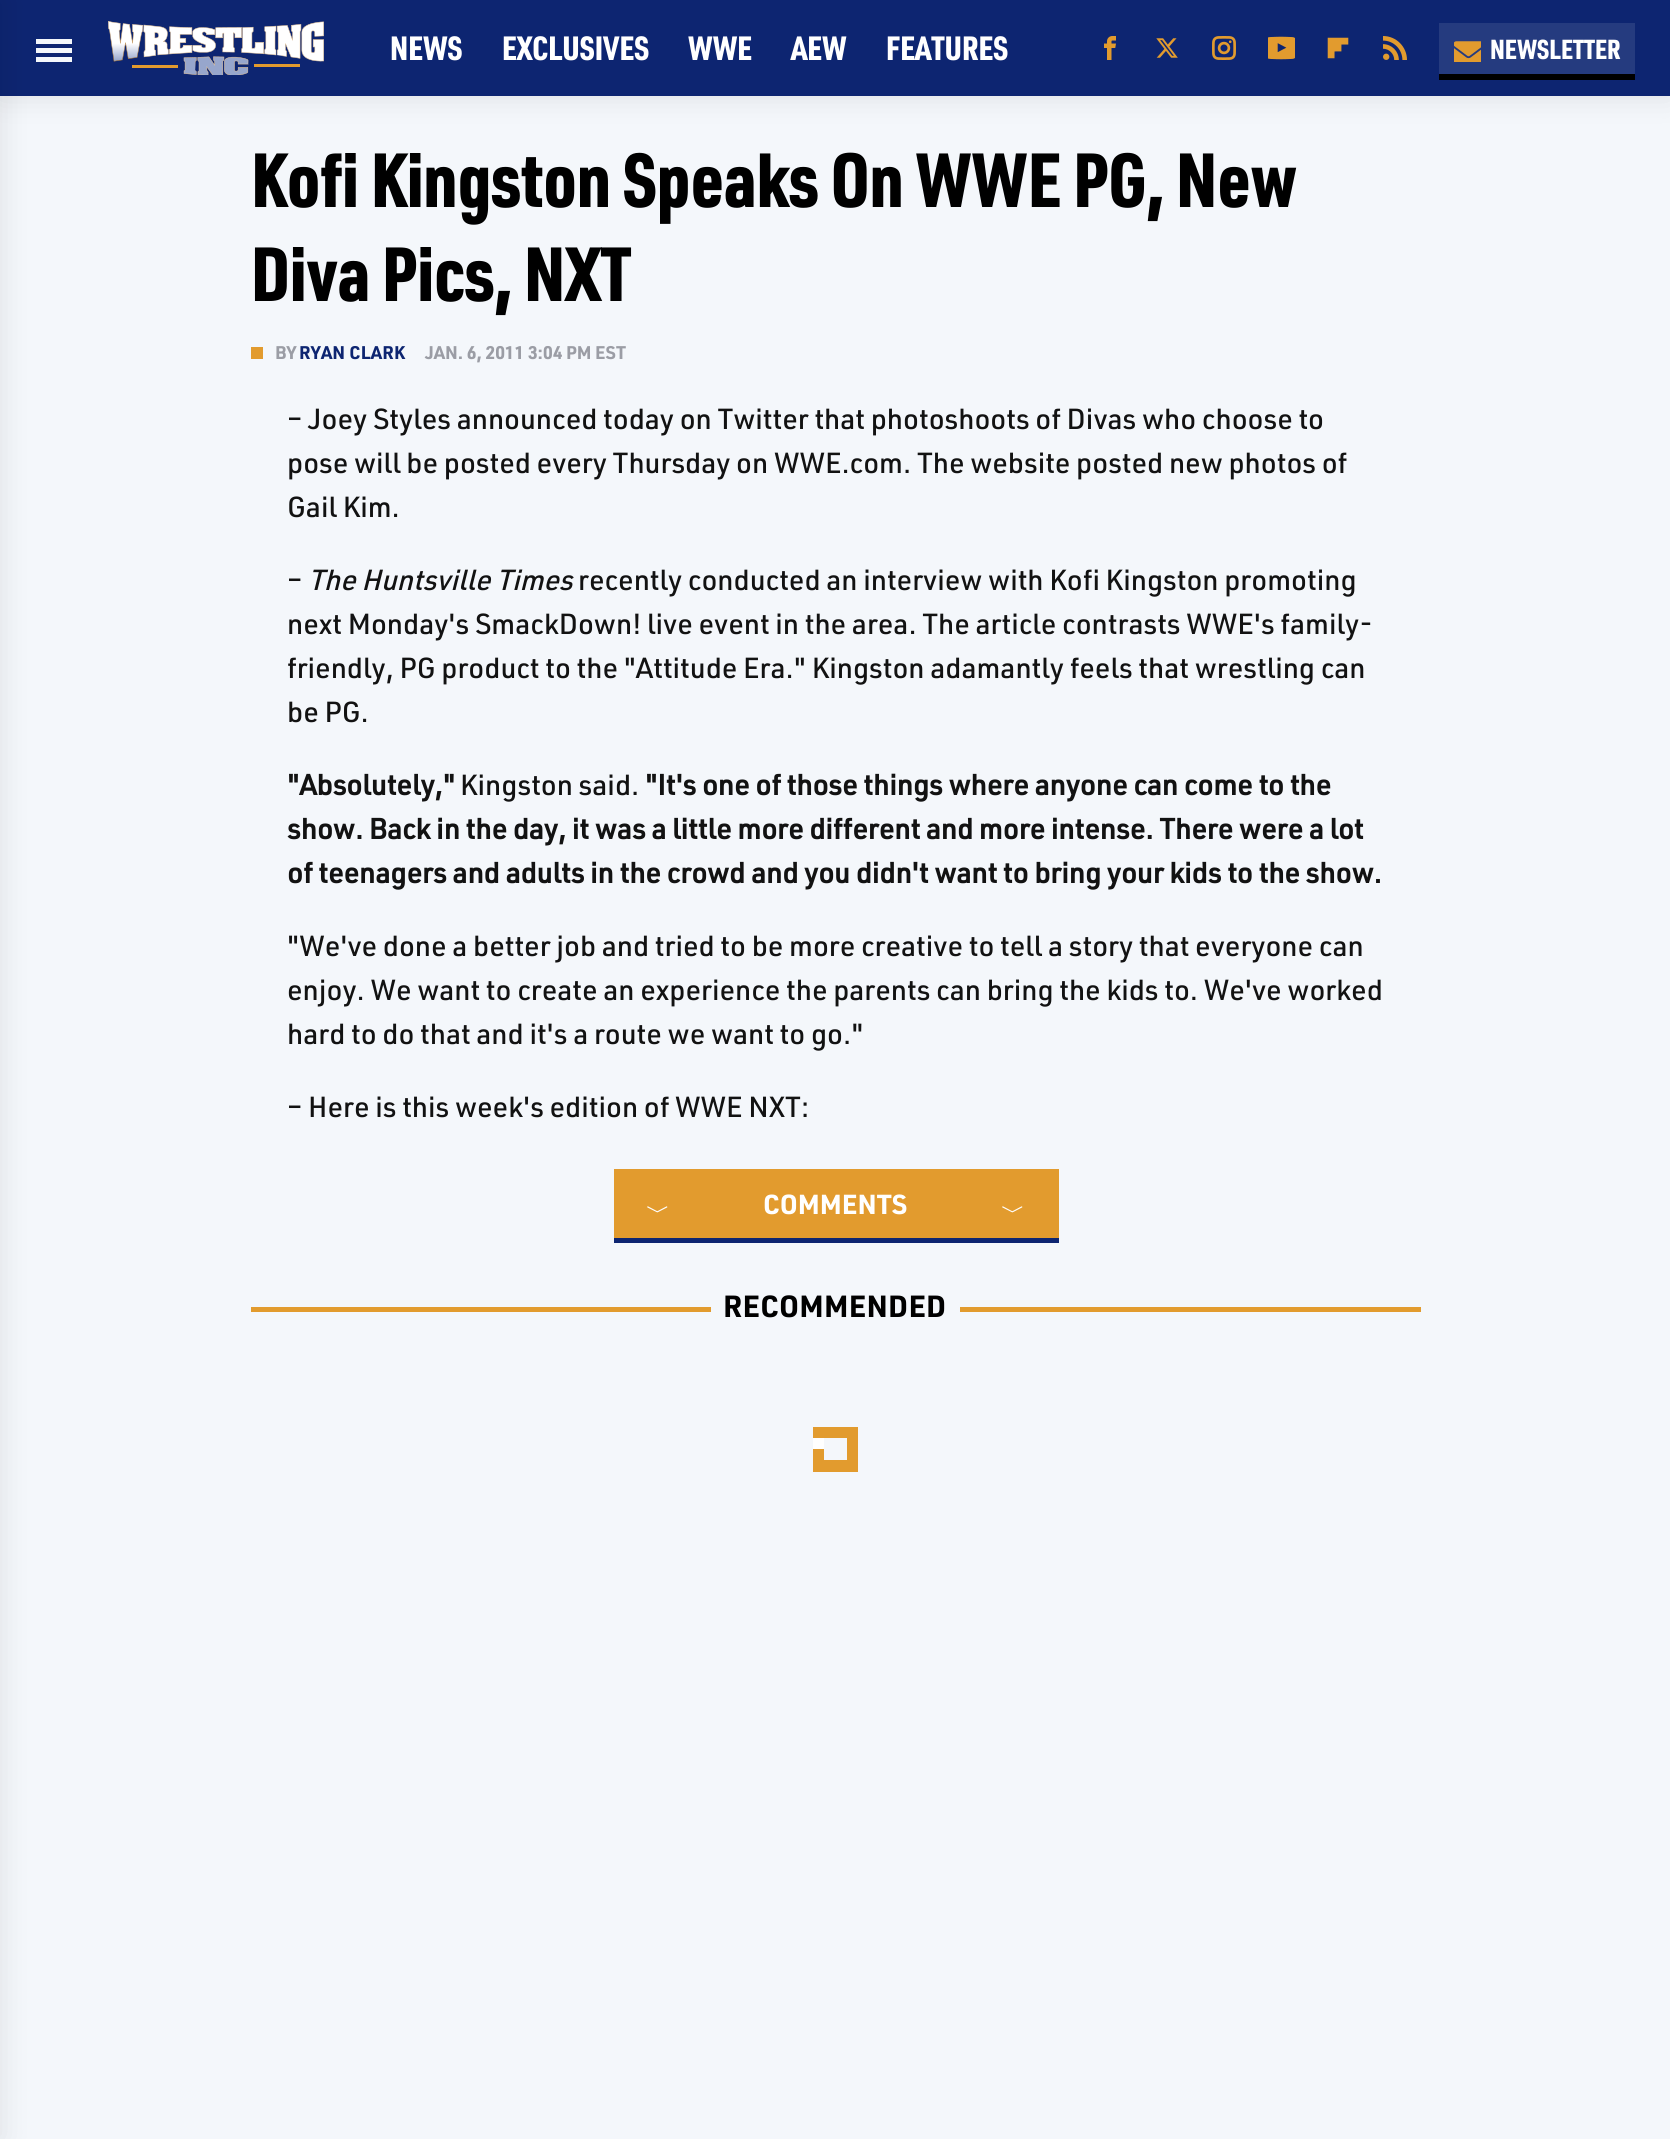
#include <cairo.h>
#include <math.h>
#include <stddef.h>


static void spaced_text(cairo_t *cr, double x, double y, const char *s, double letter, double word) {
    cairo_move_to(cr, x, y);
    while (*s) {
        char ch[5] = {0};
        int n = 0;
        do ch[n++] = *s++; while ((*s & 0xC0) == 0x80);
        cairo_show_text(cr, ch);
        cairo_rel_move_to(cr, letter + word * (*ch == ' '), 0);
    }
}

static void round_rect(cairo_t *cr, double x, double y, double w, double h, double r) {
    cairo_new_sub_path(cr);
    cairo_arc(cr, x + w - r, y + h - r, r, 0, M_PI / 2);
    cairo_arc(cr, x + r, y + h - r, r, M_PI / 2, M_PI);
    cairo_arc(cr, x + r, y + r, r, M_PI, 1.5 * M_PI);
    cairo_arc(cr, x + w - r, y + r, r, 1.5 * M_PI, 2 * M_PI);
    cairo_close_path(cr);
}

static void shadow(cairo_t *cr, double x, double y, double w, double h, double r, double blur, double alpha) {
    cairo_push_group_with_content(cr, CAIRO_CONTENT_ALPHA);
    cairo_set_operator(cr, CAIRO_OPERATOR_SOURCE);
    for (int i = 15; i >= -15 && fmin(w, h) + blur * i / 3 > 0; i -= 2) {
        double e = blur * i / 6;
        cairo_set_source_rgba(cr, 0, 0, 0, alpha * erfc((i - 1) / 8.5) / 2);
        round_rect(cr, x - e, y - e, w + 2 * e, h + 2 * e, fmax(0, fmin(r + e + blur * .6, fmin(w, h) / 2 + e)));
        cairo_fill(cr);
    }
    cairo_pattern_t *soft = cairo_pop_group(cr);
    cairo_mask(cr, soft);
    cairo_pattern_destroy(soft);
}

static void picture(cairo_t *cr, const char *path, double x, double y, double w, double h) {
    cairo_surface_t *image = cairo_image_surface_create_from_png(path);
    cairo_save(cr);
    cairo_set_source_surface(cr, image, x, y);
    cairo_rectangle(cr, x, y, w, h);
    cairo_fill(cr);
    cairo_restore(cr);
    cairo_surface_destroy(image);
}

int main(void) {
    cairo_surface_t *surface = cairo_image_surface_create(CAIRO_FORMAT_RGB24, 1670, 2139);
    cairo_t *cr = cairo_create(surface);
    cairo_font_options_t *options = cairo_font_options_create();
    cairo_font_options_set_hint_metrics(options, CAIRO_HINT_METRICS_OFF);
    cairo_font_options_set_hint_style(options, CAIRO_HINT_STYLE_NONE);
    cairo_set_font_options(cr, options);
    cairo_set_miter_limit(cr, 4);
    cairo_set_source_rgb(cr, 0.957, 0.965, 0.984);
    cairo_paint(cr);
    cairo_set_source_rgb(cr, 0, 0, 0);
    shadow(cr, 0, 0, 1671, 96, 0, 15, 0.1);
    cairo_set_source_rgb(cr, 0.051, 0.145, 0.443);
    cairo_rectangle(cr, 0, 0, 1670, 96);
    cairo_fill(cr);
    cairo_set_source_rgb(cr, 0.957, 0.965, 0.984);
    cairo_rectangle(cr, 36, 39, 36, 5);
    cairo_fill(cr);
    cairo_rectangle(cr, 36, 48, 36, 5);
    cairo_fill(cr);
    cairo_rectangle(cr, 36, 57, 36, 5);
    cairo_fill(cr);
    cairo_set_source_rgb(cr, 0, 0, 0);
    shadow(cr, -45, 0, 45, 2139, 0, 15, 0.1);
    picture(cr, "img1.png", 108, 21, 216, 54);
    cairo_select_font_face(cr, "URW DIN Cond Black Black", CAIRO_FONT_SLANT_NORMAL, CAIRO_FONT_WEIGHT_NORMAL);
    cairo_set_font_size(cr, 33);
    cairo_set_source_rgb(cr, 1, 1, 1);
    cairo_move_to(cr, 390, 60);
    cairo_show_text(cr, "NEWS");
    cairo_move_to(cr, 502, 60);
    cairo_show_text(cr, "EXCLUSIVES");
    cairo_move_to(cr, 688, 60);
    cairo_show_text(cr, "WWE");
    cairo_move_to(cr, 791, 60);
    cairo_show_text(cr, "AEW");
    cairo_move_to(cr, 886, 60);
    cairo_show_text(cr, "FEATURES");
    picture(cr, "img2.png", 1104, 36, 12, 24);
    picture(cr, "img3.png", 1156, 38, 22, 20);
    picture(cr, "img4.png", 1212, 36, 24, 24);
    picture(cr, "img5.png", 1268, 36, 27, 24);
    picture(cr, "img6.png", 1327, 37, 22, 22);
    picture(cr, "img7.png", 1383, 36, 24, 24);
    cairo_set_source_rgb(cr, 0, 0, 0);
    cairo_rectangle(cr, 1439, 74, 196, 6);
    cairo_fill(cr);
    cairo_set_source_rgb(cr, 0.145, 0.231, 0.498);
    cairo_rectangle(cr, 1439, 23, 196, 51);
    cairo_fill(cr);
    picture(cr, "img8.png", 1454, 41, 27, 21);
    cairo_set_font_size(cr, 27);
    cairo_set_source_rgb(cr, 1, 1, 1);
    cairo_move_to(cr, 1490, 59);
    cairo_show_text(cr, "NEWSLETTER");
    cairo_set_font_size(cr, 75);
    cairo_set_source_rgb(cr, 0, 0, 0);
    cairo_move_to(cr, 251, 207);
    cairo_show_text(cr, "Kofi Kingston Speaks On WWE PG, New");
    cairo_move_to(cr, 251, 301);
    cairo_show_text(cr, "Diva Pics, NXT");
    cairo_set_source_rgb(cr, 0.886, 0.608, 0.18);
    cairo_rectangle(cr, 251, 347, 12, 12);
    cairo_fill(cr);
    cairo_select_font_face(cr, "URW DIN", CAIRO_FONT_SLANT_NORMAL, CAIRO_FONT_WEIGHT_BOLD);
    cairo_set_font_size(cr, 18);
    cairo_set_source_rgb(cr, 0.608, 0.616, 0.647);
    cairo_move_to(cr, 275, 359);
    cairo_show_text(cr, "BY");
    cairo_set_source_rgb(cr, 0.051, 0.145, 0.443);
    spaced_text(cr, 299, 359, "RYAN CLARK", 0.25, 0);
    cairo_set_source_rgb(cr, 0.608, 0.616, 0.647);
    cairo_move_to(cr, 425, 359);
    cairo_show_text(cr, "JAN. 6, 2011 3:04 PM EST");
    cairo_select_font_face(cr, "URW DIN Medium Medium", CAIRO_FONT_SLANT_NORMAL, CAIRO_FONT_WEIGHT_NORMAL);
    cairo_set_font_size(cr, 28.5);
    cairo_set_source_rgb(cr, 0.071, 0.071, 0.071);
    cairo_move_to(cr, 287, 429);
    cairo_show_text(cr, "– Joey Styles announced today on Twitter that photoshoots of Divas who choose to");
    cairo_move_to(cr, 287, 473);
    cairo_show_text(cr, "pose will be posted every Thursday on WWE.com. The website posted new photos of");
    cairo_move_to(cr, 287, 517);
    cairo_show_text(cr, "Gail Kim.");
    cairo_move_to(cr, 287, 590);
    cairo_show_text(cr, "–");
    cairo_select_font_face(cr, "URW DIN Medium Medium", CAIRO_FONT_SLANT_ITALIC, CAIRO_FONT_WEIGHT_NORMAL);
    cairo_move_to(cr, 308, 590);
    cairo_show_text(cr, "The Huntsville Times");
    cairo_select_font_face(cr, "URW DIN Medium Medium", CAIRO_FONT_SLANT_NORMAL, CAIRO_FONT_WEIGHT_NORMAL);
    cairo_move_to(cr, 578, 590);
    cairo_show_text(cr, "recently conducted an interview with Kofi Kingston promoting");
    cairo_move_to(cr, 287, 634);
    cairo_show_text(cr, "next Monday's SmackDown! live event in the area. The article contrasts WWE's family-");
    cairo_move_to(cr, 287, 678);
    cairo_show_text(cr, "friendly, PG product to the \"Attitude Era.\" Kingston adamantly feels that wrestling can");
    cairo_move_to(cr, 287, 722);
    cairo_show_text(cr, "be PG.");
    cairo_select_font_face(cr, "URW DIN Medium", CAIRO_FONT_SLANT_NORMAL, CAIRO_FONT_WEIGHT_BOLD);
    cairo_move_to(cr, 287, 795);
    cairo_show_text(cr, "\"Absolutely,\"");
    cairo_select_font_face(cr, "URW DIN Medium Medium", CAIRO_FONT_SLANT_NORMAL, CAIRO_FONT_WEIGHT_NORMAL);
    cairo_move_to(cr, 460, 795);
    cairo_show_text(cr, "Kingston said.");
    cairo_select_font_face(cr, "URW DIN Medium", CAIRO_FONT_SLANT_NORMAL, CAIRO_FONT_WEIGHT_BOLD);
    cairo_move_to(cr, 645, 795);
    cairo_show_text(cr, "\"It's one of those things where anyone can come to the");
    cairo_move_to(cr, 287, 839);
    cairo_show_text(cr, "show. Back in the day, it was a little more different and more intense. There were a lot");
    cairo_move_to(cr, 287, 883);
    cairo_show_text(cr, "of teenagers and adults in the crowd and you didn't want to bring your kids to the show.");
    cairo_select_font_face(cr, "URW DIN Medium Medium", CAIRO_FONT_SLANT_NORMAL, CAIRO_FONT_WEIGHT_NORMAL);
    cairo_move_to(cr, 287, 956);
    cairo_show_text(cr, "\"We've done a better job and tried to be more creative to tell a story that everyone can");
    cairo_move_to(cr, 287, 1000);
    cairo_show_text(cr, "enjoy. We want to create an experience the parents can bring the kids to. We've worked");
    cairo_move_to(cr, 287, 1044);
    cairo_show_text(cr, "hard to do that and it's a route we want to go.\"");
    cairo_move_to(cr, 287, 1117);
    cairo_show_text(cr, "– Here is this week's edition of WWE NXT:");
    cairo_set_source_rgb(cr, 0.886, 0.608, 0.18);
    cairo_rectangle(cr, 614, 1169, 445, 69);
    cairo_fill(cr);
    cairo_set_source_rgb(cr, 0.051, 0.145, 0.443);
    cairo_rectangle(cr, 614, 1238, 445, 5);
    cairo_fill(cr);
    cairo_select_font_face(cr, "URW DIN", CAIRO_FONT_SLANT_NORMAL, CAIRO_FONT_WEIGHT_BOLD);
    cairo_set_font_size(cr, 27);
    cairo_set_source_rgb(cr, 1, 1, 1);
    cairo_move_to(cr, 763, 1214);
    cairo_show_text(cr, "COMMENTS");
    cairo_select_font_face(cr, "WenQuanYi Zen Hei Medium", CAIRO_FONT_SLANT_NORMAL, CAIRO_FONT_WEIGHT_NORMAL);
    cairo_set_font_size(cr, 24);
    cairo_move_to(cr, 646, 1220);
    cairo_show_text(cr, "﹀");
    cairo_move_to(cr, 1001, 1220);
    cairo_show_text(cr, "﹀");
    cairo_set_source_rgb(cr, 0.886, 0.608, 0.18);
    cairo_rectangle(cr, 251, 1307, 460, 5);
    cairo_fill(cr);
    cairo_select_font_face(cr, "URW DIN", CAIRO_FONT_SLANT_NORMAL, CAIRO_FONT_WEIGHT_BOLD);
    cairo_set_font_size(cr, 30);
    cairo_set_source_rgb(cr, 0, 0, 0);
    spaced_text(cr, 723, 1317, "RECOMMENDED", 0.25, 0);
    cairo_set_source_rgb(cr, 0.886, 0.608, 0.18);
    cairo_rectangle(cr, 960, 1307, 461, 5);
    cairo_fill(cr);
    picture(cr, "img9.png", 813, 1427, 45, 45);
    cairo_surface_write_to_png(surface, "page.png");
    cairo_font_options_destroy(options);
    cairo_destroy(cr);
    cairo_surface_destroy(surface);
    return 0;
}
